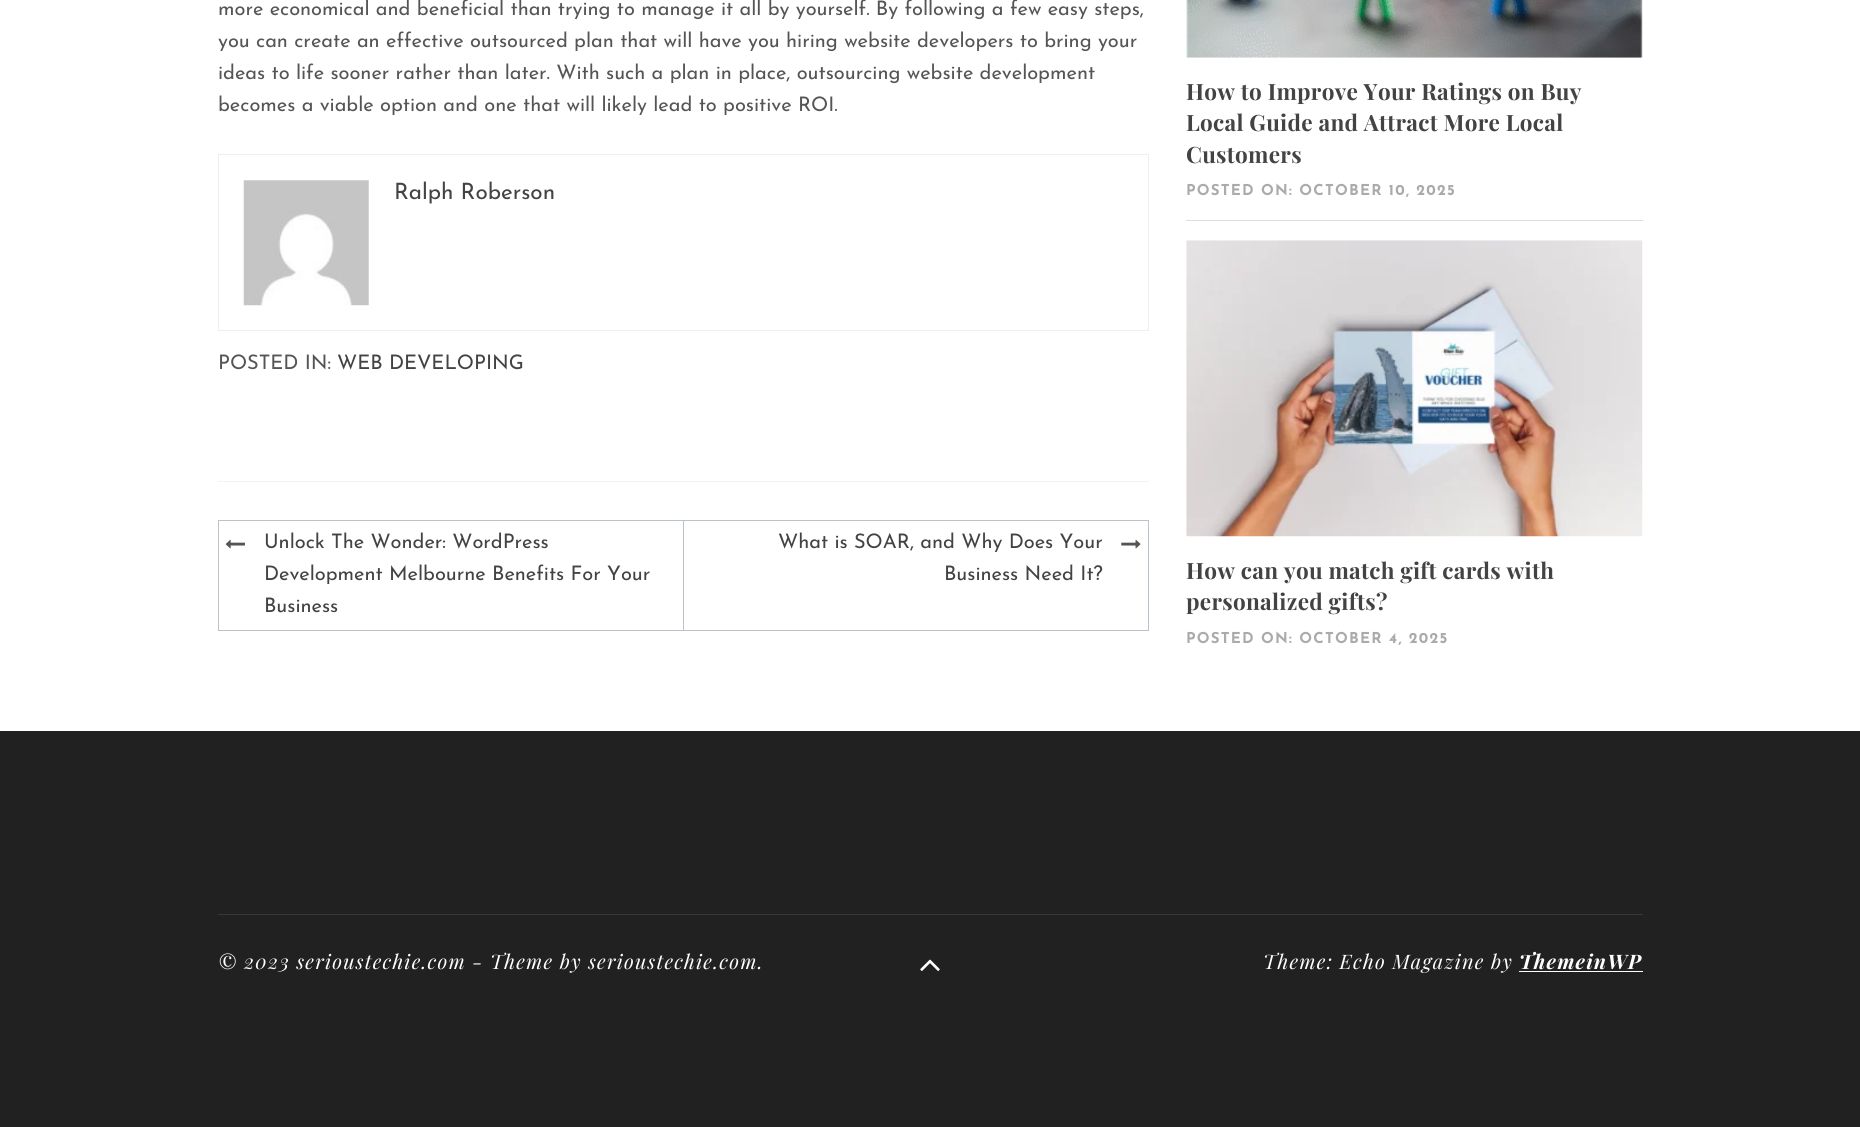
#include <cairo.h>
#include <math.h>
#include <stddef.h>


static void spaced_text(cairo_t *cr, double x, double y, const char *s, double letter, double word) {
    cairo_move_to(cr, x, y);
    while (*s) {
        char ch[5] = {0};
        int n = 0;
        do ch[n++] = *s++; while ((*s & 0xC0) == 0x80);
        cairo_show_text(cr, ch);
        cairo_rel_move_to(cr, letter + word * (*ch == ' '), 0);
    }
}

static void picture(cairo_t *cr, const char *path, double x, double y, double w, double h) {
    cairo_surface_t *image = cairo_image_surface_create_from_png(path);
    cairo_save(cr);
    cairo_set_source_surface(cr, image, x, y);
    cairo_rectangle(cr, x, y, w, h);
    cairo_fill(cr);
    cairo_restore(cr);
    cairo_surface_destroy(image);
}

int main(void) {
    cairo_surface_t *surface = cairo_image_surface_create(CAIRO_FORMAT_RGB24, 1860, 1127);
    cairo_t *cr = cairo_create(surface);
    cairo_font_options_t *options = cairo_font_options_create();
    cairo_font_options_set_hint_metrics(options, CAIRO_HINT_METRICS_OFF);
    cairo_font_options_set_hint_style(options, CAIRO_HINT_STYLE_NONE);
    cairo_set_font_options(cr, options);
    cairo_set_miter_limit(cr, 4);
    cairo_set_source_rgb(cr, 1, 1, 1);
    cairo_paint(cr);
    cairo_set_source_rgb(cr, 0.953, 0.953, 0.953);
    cairo_rectangle(cr, 218, 481, 931, 1);
    cairo_fill(cr);
    cairo_select_font_face(cr, "Josefin Sans", CAIRO_FONT_SLANT_NORMAL, CAIRO_FONT_WEIGHT_NORMAL);
    cairo_set_font_size(cr, 20);
    cairo_set_source_rgb(cr, 0.333, 0.333, 0.333);
    cairo_move_to(cr, 218, 15);
    cairo_show_text(cr, "more economical and beneficial than trying to manage it all by yourself. By following a few easy steps,");
    cairo_move_to(cr, 218, 47);
    cairo_show_text(cr, "you can create an effective outsourced plan that will have you hiring website developers to bring your");
    cairo_move_to(cr, 218, 79);
    cairo_show_text(cr, "ideas to life sooner rather than later. With such a plan in place, outsourcing website development");
    cairo_move_to(cr, 218, 111);
    cairo_show_text(cr, "becomes a viable option and one that will likely lead to positive ROI.");
    cairo_rectangle(cr, 218.5, 154.5, 930, 176);
    cairo_set_source_rgb(cr, 0.933, 0.933, 0.933);
    cairo_set_line_width(cr, 1);
    cairo_stroke(cr);
    picture(cr, "img1.png", 243, 180, 126, 126);
    cairo_set_font_size(cr, 22.5);
    cairo_set_source_rgb(cr, 0.263, 0.263, 0.263);
    cairo_move_to(cr, 394, 199);
    cairo_show_text(cr, "Ralph Roberson");
    cairo_set_font_size(cr, 20);
    cairo_set_source_rgb(cr, 0.333, 0.333, 0.333);
    cairo_move_to(cr, 218, 369);
    cairo_show_text(cr, "POSTED IN:");
    cairo_set_source_rgb(cr, 0.263, 0.263, 0.263);
    cairo_move_to(cr, 337, 369);
    cairo_show_text(cr, "WEB DEVELOPING");
    cairo_rectangle(cr, 218.5, 520.5, 930, 110);
    cairo_set_source_rgb(cr, 0.729, 0.761, 0.8);
    cairo_stroke(cr);
    cairo_rectangle(cr, 683, 521, 1, 109);
    cairo_fill(cr);
    picture(cr, "img2.png", 225, 539, 20, 10);
    cairo_set_source_rgb(cr, 0.263, 0.263, 0.263);
    cairo_move_to(cr, 264, 548);
    cairo_show_text(cr, "Unlock The Wonder: WordPress");
    cairo_move_to(cr, 264, 580);
    cairo_show_text(cr, "Development Melbourne Benefits For Your");
    cairo_move_to(cr, 264, 612);
    cairo_show_text(cr, "Business");
    cairo_move_to(cr, 778, 548);
    cairo_show_text(cr, "What is SOAR, and Why Does Your");
    cairo_move_to(cr, 944, 580);
    cairo_show_text(cr, "Business Need It?");
    picture(cr, "img3.png", 1121, 539, 20, 10);
    cairo_set_source_rgb(cr, 0.871, 0.871, 0.871);
    cairo_rectangle(cr, 1186, 220, 457, 1);
    cairo_fill(cr);
    picture(cr, "img4.png", 1186, 0, 457, 58);
    cairo_select_font_face(cr, "Playfair Display", CAIRO_FONT_SLANT_NORMAL, CAIRO_FONT_WEIGHT_BOLD);
    cairo_set_font_size(cr, 22.5);
    cairo_set_source_rgb(cr, 0.263, 0.263, 0.263);
    spaced_text(cr, 1186, 100, "How to Improve Your Ratings on Buy", 0.3, 0);
    spaced_text(cr, 1186, 131, "Local Guide and Attract More Local", 0.3, 0);
    spaced_text(cr, 1186, 163, "Customers", 0.3, 0);
    cairo_select_font_face(cr, "Josefin Sans", CAIRO_FONT_SLANT_NORMAL, CAIRO_FONT_WEIGHT_BOLD);
    cairo_set_font_size(cr, 15);
    cairo_set_source_rgb(cr, 0.667, 0.667, 0.667);
    spaced_text(cr, 1186, 195, "POSTED ON: OCTOBER 10, 2025", 1.25, 0);
    picture(cr, "img5.png", 1186, 240, 457, 297);
    cairo_select_font_face(cr, "Playfair Display", CAIRO_FONT_SLANT_NORMAL, CAIRO_FONT_WEIGHT_BOLD);
    cairo_set_font_size(cr, 22.5);
    cairo_set_source_rgb(cr, 0.263, 0.263, 0.263);
    spaced_text(cr, 1186, 579, "How can you match gift cards with", 0.3, 0);
    spaced_text(cr, 1186, 610, "personalized gifts?", 0.3, 0);
    cairo_select_font_face(cr, "Josefin Sans", CAIRO_FONT_SLANT_NORMAL, CAIRO_FONT_WEIGHT_BOLD);
    cairo_set_font_size(cr, 15);
    cairo_set_source_rgb(cr, 0.667, 0.667, 0.667);
    spaced_text(cr, 1186, 643, "POSTED ON: OCTOBER 4, 2025", 1.25, 0);
    cairo_set_source_rgb(cr, 0.129, 0.129, 0.129);
    cairo_rectangle(cr, 0, 731, 1860, 396);
    cairo_fill(cr);
    cairo_set_source_rgb(cr, 0.22, 0.22, 0.22);
    cairo_rectangle(cr, 218, 914, 1425, 1);
    cairo_fill(cr);
    cairo_select_font_face(cr, "Playfair Display", CAIRO_FONT_SLANT_ITALIC, CAIRO_FONT_WEIGHT_NORMAL);
    cairo_set_font_size(cr, 20);
    cairo_set_source_rgb(cr, 1, 1, 1);
    spaced_text(cr, 218, 969, "© 2023 serioustechie.com - Theme by serioustechie.com.", 1.25, 0);
    picture(cr, "img6.png", 920, 959, 20, 12);
    spaced_text(cr, 1263, 969, "Theme: Echo Magazine by", 1.25, 0);
    cairo_select_font_face(cr, "Playfair Display", CAIRO_FONT_SLANT_ITALIC, CAIRO_FONT_WEIGHT_BOLD);
    spaced_text(cr, 1519, 969, "ThemeinWP", 1.25, 0);
    cairo_rectangle(cr, 1519, 971, 124, 1);
    cairo_fill(cr);
    cairo_surface_write_to_png(surface, "page.png");
    cairo_font_options_destroy(options);
    cairo_destroy(cr);
    cairo_surface_destroy(surface);
    return 0;
}
